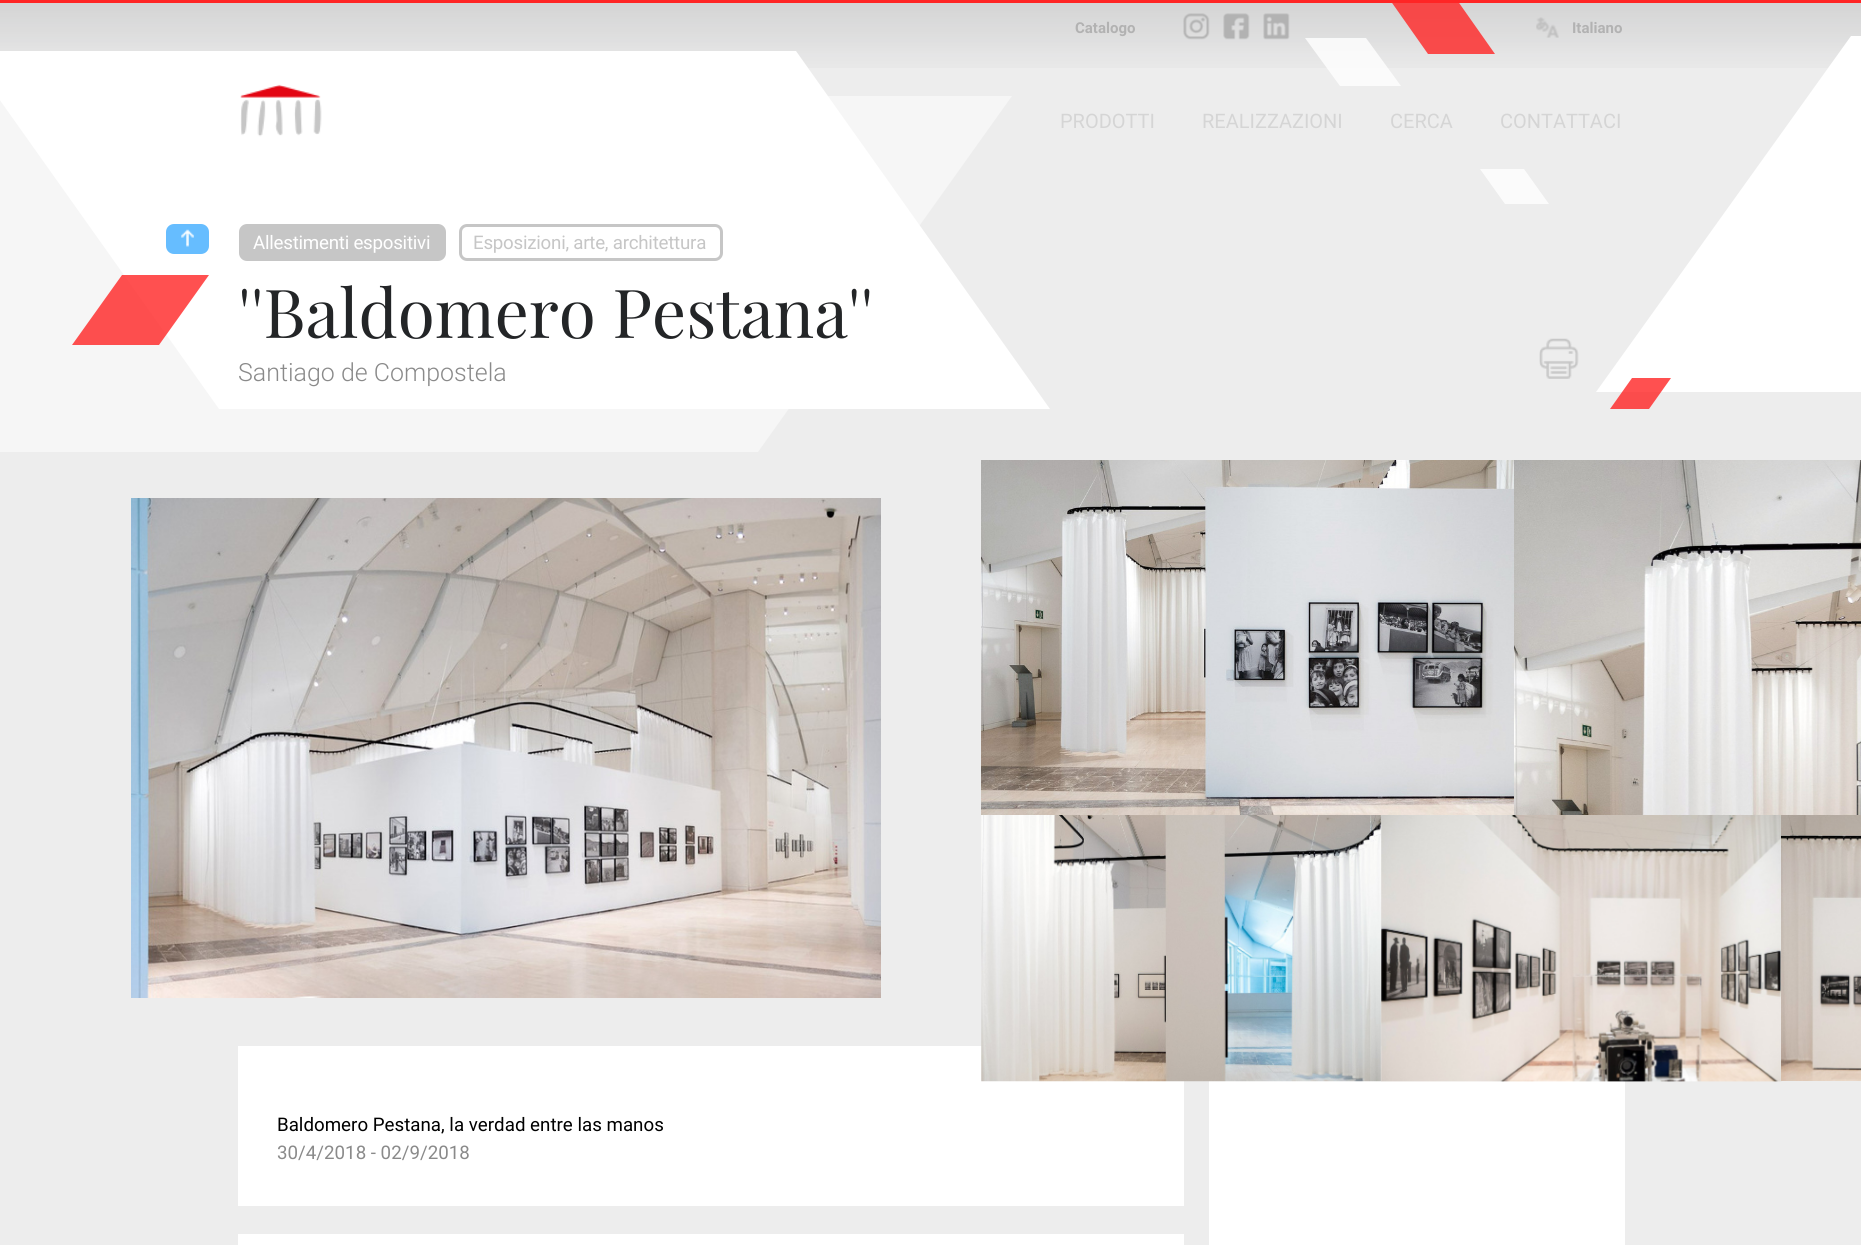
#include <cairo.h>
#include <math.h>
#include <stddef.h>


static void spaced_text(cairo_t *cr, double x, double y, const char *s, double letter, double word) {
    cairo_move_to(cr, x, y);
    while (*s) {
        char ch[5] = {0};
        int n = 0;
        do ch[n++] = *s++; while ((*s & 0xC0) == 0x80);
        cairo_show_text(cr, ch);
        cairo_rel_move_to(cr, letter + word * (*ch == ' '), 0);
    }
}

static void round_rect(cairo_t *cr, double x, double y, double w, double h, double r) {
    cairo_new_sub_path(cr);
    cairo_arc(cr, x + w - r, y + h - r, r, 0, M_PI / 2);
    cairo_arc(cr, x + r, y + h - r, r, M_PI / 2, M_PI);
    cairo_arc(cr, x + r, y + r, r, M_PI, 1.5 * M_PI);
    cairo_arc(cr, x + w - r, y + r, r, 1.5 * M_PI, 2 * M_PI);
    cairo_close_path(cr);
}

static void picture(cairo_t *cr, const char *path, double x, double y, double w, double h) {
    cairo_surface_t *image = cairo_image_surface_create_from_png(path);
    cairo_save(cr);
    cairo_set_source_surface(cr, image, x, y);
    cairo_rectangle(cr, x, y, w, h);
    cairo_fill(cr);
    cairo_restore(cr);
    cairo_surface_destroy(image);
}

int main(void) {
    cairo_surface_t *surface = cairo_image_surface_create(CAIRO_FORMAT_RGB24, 1861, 1245);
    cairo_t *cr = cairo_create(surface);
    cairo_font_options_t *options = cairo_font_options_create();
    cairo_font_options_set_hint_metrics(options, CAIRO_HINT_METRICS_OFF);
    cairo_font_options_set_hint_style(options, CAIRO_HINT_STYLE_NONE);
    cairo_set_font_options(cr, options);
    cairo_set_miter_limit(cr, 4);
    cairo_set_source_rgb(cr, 0.929, 0.929, 0.929);
    cairo_paint(cr);
    picture(cr, "img1.png", 0, 3, 1861, 65);
    cairo_select_font_face(cr, "Roboto", CAIRO_FONT_SLANT_NORMAL, CAIRO_FONT_WEIGHT_BOLD);
    cairo_set_font_size(cr, 15);
    cairo_set_source_rgb(cr, 0.698, 0.698, 0.698);
    cairo_move_to(cr, 1075, 33);
    cairo_show_text(cr, "Catalogo");
    picture(cr, "img2.png", 1183, 13, 27, 27);
    picture(cr, "img3.png", 1223, 13, 27, 27);
    picture(cr, "img4.png", 1263, 13, 27, 27);
    picture(cr, "img5.png", 1536, 17, 23, 21);
    cairo_move_to(cr, 1572, 33);
    cairo_show_text(cr, "Italiano");
    cairo_set_source_rgb(cr, 1, 1, 1);
    cairo_new_path(cr);
    cairo_move_to(cr, -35, 51);
    cairo_line_to(cr, 796, 51);
    cairo_line_to(cr, 1050, 409);
    cairo_line_to(cr, 219, 409);
    cairo_close_path(cr);
    cairo_fill(cr);
    cairo_set_source_rgba(cr, 1, 1, 1, 0.48);
    cairo_new_path(cr);
    cairo_move_to(cr, -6, 96);
    cairo_line_to(cr, 1012, 96);
    cairo_line_to(cr, 758, 452);
    cairo_line_to(cr, -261, 452);
    cairo_close_path(cr);
    cairo_fill(cr);
    picture(cr, "img6.png", 240, 84, 82, 53);
    cairo_select_font_face(cr, "Roboto", CAIRO_FONT_SLANT_NORMAL, CAIRO_FONT_WEIGHT_NORMAL);
    cairo_set_font_size(cr, 20);
    cairo_set_source_rgb(cr, 0.835, 0.835, 0.835);
    cairo_move_to(cr, 1060, 128);
    cairo_show_text(cr, "PRODOTTI");
    cairo_move_to(cr, 1202, 128);
    cairo_show_text(cr, "REALIZZAZIONI");
    cairo_move_to(cr, 1390, 128);
    cairo_show_text(cr, "CERCA");
    cairo_set_source_rgb(cr, 1, 1, 1);
    cairo_new_path(cr);
    cairo_move_to(cr, 1851, 36);
    cairo_line_to(cr, 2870, 36);
    cairo_line_to(cr, 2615, 392);
    cairo_line_to(cr, 1596, 392);
    cairo_close_path(cr);
    cairo_fill(cr);
    cairo_set_source_rgb(cr, 0.835, 0.835, 0.835);
    cairo_move_to(cr, 1500, 128);
    cairo_show_text(cr, "CONTATTACI");
    cairo_set_source_rgba(cr, 1, 1, 1, 0.8);
    cairo_new_path(cr);
    cairo_move_to(cr, 1305, 38);
    cairo_line_to(cr, 1366, 38);
    cairo_line_to(cr, 1401, 86);
    cairo_line_to(cr, 1340, 86);
    cairo_close_path(cr);
    cairo_fill(cr);
    cairo_set_source_rgba(cr, 1, 0.145, 0.145, 0.8);
    cairo_new_path(cr);
    cairo_move_to(cr, 1390, 0);
    cairo_line_to(cr, 1457, 0);
    cairo_line_to(cr, 1495, 54);
    cairo_line_to(cr, 1428, 54);
    cairo_close_path(cr);
    cairo_fill(cr);
    cairo_set_source_rgb(cr, 1, 0.145, 0.145);
    cairo_rectangle(cr, 0, 0, 1861, 3);
    cairo_fill(cr);
    cairo_set_source_rgb(cr, 0.984, 0.984, 0.984);
    cairo_new_path(cr);
    cairo_move_to(cr, 1480, 169);
    cairo_line_to(cr, 1524, 169);
    cairo_line_to(cr, 1549, 204);
    cairo_line_to(cr, 1505, 204);
    cairo_close_path(cr);
    cairo_fill(cr);
    cairo_set_source_rgba(cr, 1, 0.145, 0.145, 0.8);
    cairo_new_path(cr);
    cairo_move_to(cr, 122, 275);
    cairo_line_to(cr, 209, 275);
    cairo_line_to(cr, 159, 345);
    cairo_line_to(cr, 72, 345);
    cairo_close_path(cr);
    cairo_fill(cr);
    cairo_set_source_rgb(cr, 0.4, 0.741, 1);
    round_rect(cr, 166, 224, 43, 30, 8);
    cairo_fill(cr);
    picture(cr, "img7.png", 181, 229, 13, 18);
    cairo_set_source_rgb(cr, 0.776, 0.776, 0.776);
    round_rect(cr, 240.5, 225.5, 204, 34, 6.5);
    cairo_fill_preserve(cr);
    cairo_set_line_width(cr, 3);
    cairo_stroke(cr);
    cairo_set_font_size(cr, 18.75);
    cairo_set_source_rgb(cr, 1, 1, 1);
    spaced_text(cr, 253, 249, "Allestimenti espositivi", -0.25, 0);
    round_rect(cr, 460.5, 225.5, 261, 34, 6.5);
    cairo_set_source_rgb(cr, 0.776, 0.776, 0.776);
    cairo_stroke(cr);
    spaced_text(cr, 473, 249, "Esposizioni, arte, architettura", -0.25, 0);
    cairo_select_font_face(cr, "Playfair Display", CAIRO_FONT_SLANT_NORMAL, CAIRO_FONT_WEIGHT_NORMAL);
    cairo_set_font_size(cr, 67.5);
    cairo_set_source_rgb(cr, 0.137, 0.145, 0.153);
    cairo_move_to(cr, 238, 338);
    cairo_show_text(cr, "''Baldomero Pestana''");
    cairo_select_font_face(cr, "Roboto Light", CAIRO_FONT_SLANT_NORMAL, CAIRO_FONT_WEIGHT_NORMAL);
    cairo_set_font_size(cr, 25);
    cairo_set_source_rgb(cr, 0.541, 0.541, 0.541);
    cairo_move_to(cr, 238, 381);
    cairo_show_text(cr, "Santiago de Compostela");
    picture(cr, "img8.png", 1539, 338, 40, 41);
    cairo_set_source_rgba(cr, 1, 0.145, 0.145, 0.8);
    cairo_new_path(cr);
    cairo_move_to(cr, 1632, 378);
    cairo_line_to(cr, 1671, 378);
    cairo_line_to(cr, 1649, 409);
    cairo_line_to(cr, 1610, 409);
    cairo_close_path(cr);
    cairo_fill(cr);
    picture(cr, "img9.png", 131, 498, 750, 500);
    picture(cr, "img10.png", 981, 460, 533, 355);
    picture(cr, "img11.png", 1514, 460, 347, 355);
    cairo_set_source_rgb(cr, 1, 1, 1);
    cairo_rectangle(cr, 238, 1046, 946, 199);
    cairo_fill(cr);
    cairo_rectangle(cr, 1209, 1046, 416, 199);
    cairo_fill(cr);
    picture(cr, "img12.png", 981, 815, 401, 267);
    picture(cr, "img13.png", 1381, 815, 401, 267);
    picture(cr, "img14.png", 1781, 815, 80, 266);
    cairo_select_font_face(cr, "Roboto", CAIRO_FONT_SLANT_NORMAL, CAIRO_FONT_WEIGHT_NORMAL);
    cairo_set_font_size(cr, 18.75);
    cairo_set_source_rgb(cr, 0, 0, 0);
    cairo_move_to(cr, 277, 1131);
    cairo_show_text(cr, "Baldomero Pestana, la verdad entre las manos");
    cairo_set_source_rgb(cr, 0.541, 0.541, 0.541);
    cairo_move_to(cr, 277, 1159);
    cairo_show_text(cr, "30/4/2018 - 02/9/2018");
    cairo_set_source_rgb(cr, 0.929, 0.929, 0.929);
    cairo_rectangle(cr, 238, 1206, 946, 28);
    cairo_fill(cr);
    cairo_surface_write_to_png(surface, "page.png");
    cairo_font_options_destroy(options);
    cairo_destroy(cr);
    cairo_surface_destroy(surface);
    return 0;
}
